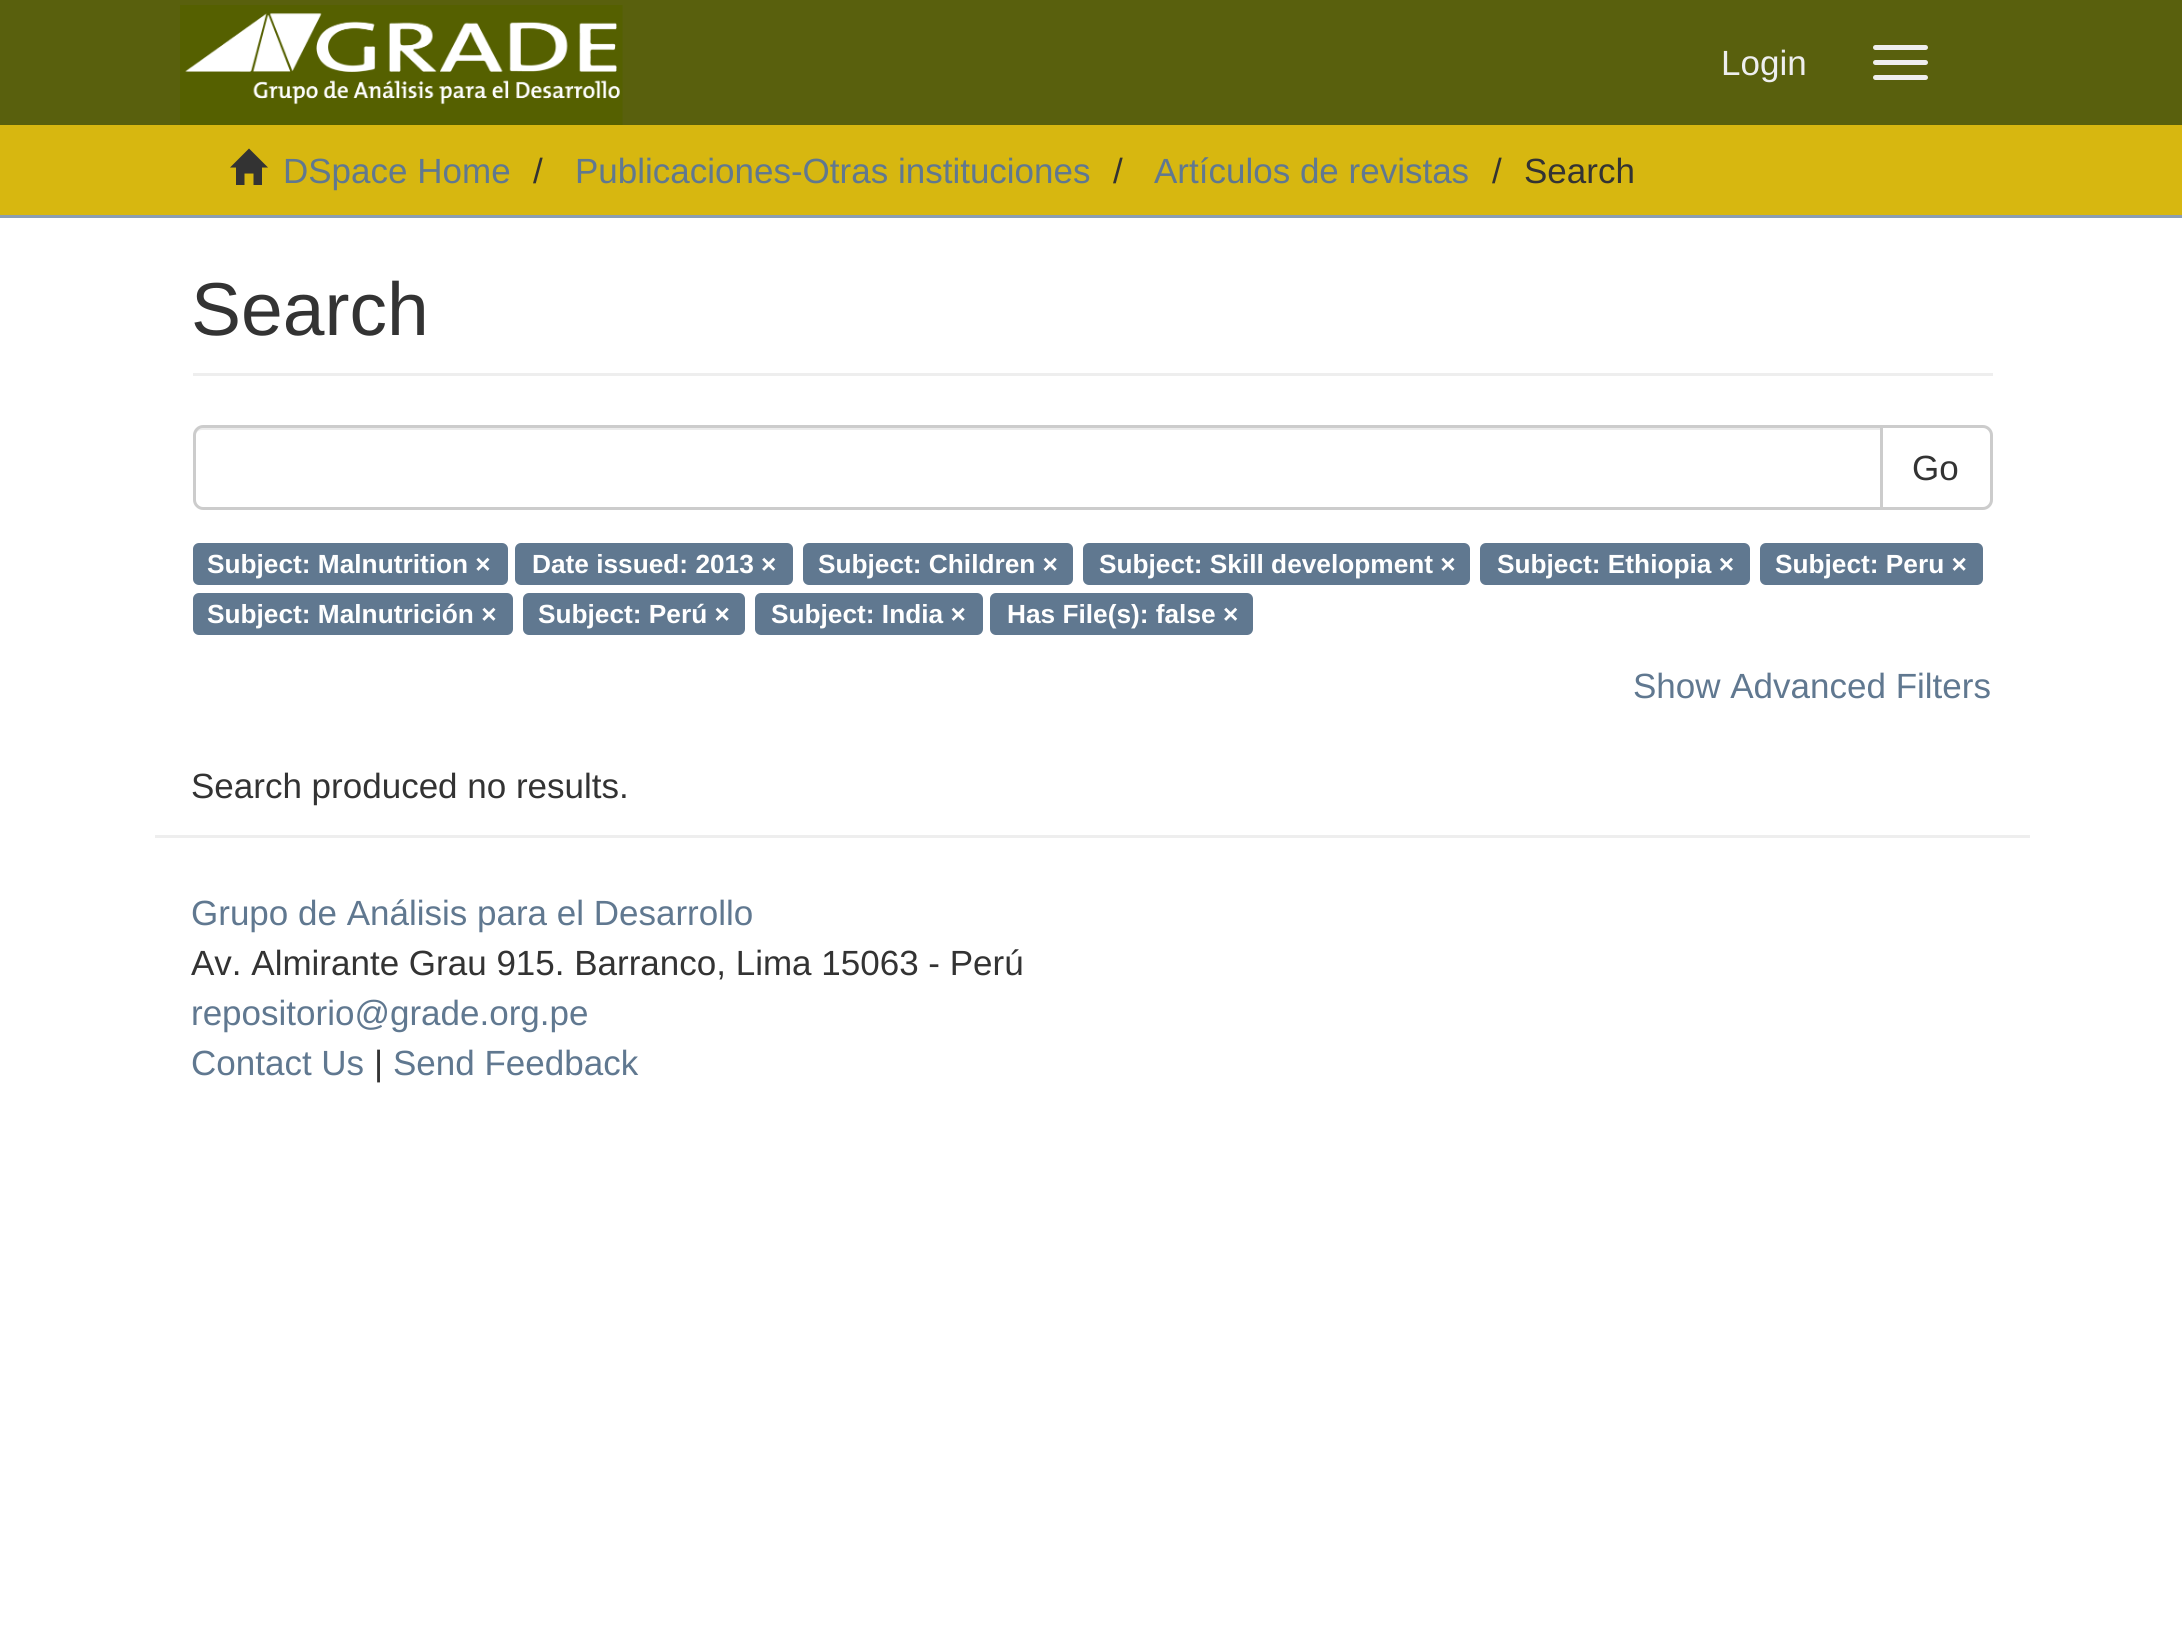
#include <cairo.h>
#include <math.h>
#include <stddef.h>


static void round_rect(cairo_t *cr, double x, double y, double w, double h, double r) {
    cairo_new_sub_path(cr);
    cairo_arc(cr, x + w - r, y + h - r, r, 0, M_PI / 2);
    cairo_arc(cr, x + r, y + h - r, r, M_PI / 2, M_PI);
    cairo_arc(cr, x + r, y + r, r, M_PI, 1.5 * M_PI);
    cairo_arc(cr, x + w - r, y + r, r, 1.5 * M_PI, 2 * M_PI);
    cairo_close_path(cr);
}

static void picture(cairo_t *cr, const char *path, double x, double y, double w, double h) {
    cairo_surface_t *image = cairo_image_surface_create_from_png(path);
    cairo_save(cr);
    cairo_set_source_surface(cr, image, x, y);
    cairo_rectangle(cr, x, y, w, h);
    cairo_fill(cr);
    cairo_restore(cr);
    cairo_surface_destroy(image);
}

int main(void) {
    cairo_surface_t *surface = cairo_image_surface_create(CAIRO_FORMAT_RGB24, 2182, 1649);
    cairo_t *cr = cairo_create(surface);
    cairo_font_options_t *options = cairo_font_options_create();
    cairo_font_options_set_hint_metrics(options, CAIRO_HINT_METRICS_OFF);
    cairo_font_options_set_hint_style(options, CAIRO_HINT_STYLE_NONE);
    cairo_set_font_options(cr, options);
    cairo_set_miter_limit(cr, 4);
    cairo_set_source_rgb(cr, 1, 1, 1);
    cairo_paint(cr);
    cairo_set_source_rgb(cr, 0.349, 0.376, 0.051);
    cairo_rectangle(cr, 0, 0, 2182, 125);
    cairo_fill(cr);
    picture(cr, "img1.png", 180, 5, 443, 120);
    cairo_select_font_face(cr, "Liberation Sans", CAIRO_FONT_SLANT_NORMAL, CAIRO_FONT_WEIGHT_NORMAL);
    cairo_set_font_size(cr, 35);
    cairo_set_source_rgb(cr, 0.933, 0.933, 0.933);
    cairo_move_to(cr, 1721, 75);
    cairo_show_text(cr, "Login");
    round_rect(cr, 1873, 45, 55, 5, 2.5);
    cairo_fill(cr);
    round_rect(cr, 1873, 60, 55, 5, 2.5);
    cairo_fill(cr);
    round_rect(cr, 1873, 75, 55, 5, 2.5);
    cairo_fill(cr);
    cairo_set_source_rgb(cr, 0.843, 0.718, 0.063);
    cairo_rectangle(cr, 0, 125, 2182, 90);
    cairo_fill(cr);
    cairo_set_source_rgb(cr, 0.545, 0.62, 0.698);
    cairo_rectangle(cr, 0, 215, 2182, 3);
    cairo_fill(cr);
    cairo_set_source_rgb(cr, 0.2, 0.2, 0.2);
    cairo_new_path(cr);
    cairo_move_to(cr, 230, 167.5);
    cairo_line_to(cr, 249, 148.5);
    cairo_line_to(cr, 268, 167.5);
    cairo_line_to(cr, 262, 167.5);
    cairo_line_to(cr, 262, 185);
    cairo_line_to(cr, 253.5, 185);
    cairo_line_to(cr, 253.5, 173.5);
    cairo_line_to(cr, 244.5, 173.5);
    cairo_line_to(cr, 244.5, 185);
    cairo_line_to(cr, 236, 185);
    cairo_line_to(cr, 236, 167.5);
    cairo_close_path(cr);
    cairo_fill(cr);
    cairo_set_source_rgb(cr, 0.376, 0.471, 0.565);
    cairo_move_to(cr, 283, 183);
    cairo_show_text(cr, "DSpace Home");
    cairo_set_source_rgb(cr, 0.2, 0.2, 0.2);
    cairo_move_to(cr, 533, 183);
    cairo_show_text(cr, "/");
    cairo_set_source_rgb(cr, 0.376, 0.471, 0.565);
    cairo_move_to(cr, 575, 183);
    cairo_show_text(cr, "Publicaciones-Otras instituciones");
    cairo_set_source_rgb(cr, 0.2, 0.2, 0.2);
    cairo_move_to(cr, 1113, 183);
    cairo_show_text(cr, "/");
    cairo_set_source_rgb(cr, 0.376, 0.471, 0.565);
    cairo_move_to(cr, 1154, 183);
    cairo_show_text(cr, "Artículos de revistas");
    cairo_set_source_rgb(cr, 0.2, 0.2, 0.2);
    cairo_move_to(cr, 1492, 183);
    cairo_show_text(cr, "/");
    cairo_move_to(cr, 1524, 183);
    cairo_show_text(cr, "Search");
    cairo_set_source_rgb(cr, 0.933, 0.933, 0.933);
    cairo_rectangle(cr, 193, 373, 1800, 3);
    cairo_fill(cr);
    cairo_set_font_size(cr, 75);
    cairo_set_source_rgb(cr, 0.2, 0.2, 0.2);
    cairo_move_to(cr, 191, 335);
    cairo_show_text(cr, "Search");
    cairo_new_path(cr);
    cairo_move_to(cr, 1881.5, 426.5);
    cairo_line_to(cr, 1983, 426.5);
    cairo_curve_to(cr, 1987.5, 426.5, 1991.5, 430.5, 1991.5, 435);
    cairo_line_to(cr, 1991.5, 500);
    cairo_curve_to(cr, 1991.5, 504.5, 1987.5, 508.5, 1983, 508.5);
    cairo_line_to(cr, 1881.5, 508.5);
    cairo_close_path(cr);
    cairo_set_source_rgb(cr, 0.8, 0.8, 0.8);
    cairo_set_line_width(cr, 3);
    cairo_stroke(cr);
    cairo_set_source_rgb(cr, 1, 1, 1);
    cairo_new_path(cr);
    cairo_move_to(cr, 203, 425);
    cairo_line_to(cr, 1883, 425);
    cairo_line_to(cr, 1883, 510);
    cairo_line_to(cr, 203, 510);
    cairo_curve_to(cr, 197.5, 510, 193, 505.5, 193, 500);
    cairo_line_to(cr, 193, 435);
    cairo_curve_to(cr, 193, 429.5, 197.5, 425, 203, 425);
    cairo_close_path(cr);
    cairo_fill(cr);
    cairo_set_source_rgb(cr, 0.925, 0.925, 0.925);
    cairo_new_path(cr);
    cairo_move_to(cr, 202, 430);
    cairo_line_to(cr, 1880, 430);
    cairo_line_to(cr, 1880, 428);
    cairo_line_to(cr, 203, 428);
    cairo_curve_to(cr, 197, 428, 195, 433, 195, 438);
    cairo_curve_to(cr, 195, 433, 198, 430, 202, 430);
    cairo_close_path(cr);
    cairo_fill(cr);
    cairo_new_path(cr);
    cairo_move_to(cr, 203, 426.5);
    cairo_line_to(cr, 1881.5, 426.5);
    cairo_line_to(cr, 1881.5, 508.5);
    cairo_line_to(cr, 203, 508.5);
    cairo_curve_to(cr, 198.5, 508.5, 194.5, 504.5, 194.5, 500);
    cairo_line_to(cr, 194.5, 435);
    cairo_curve_to(cr, 194.5, 430.5, 198.5, 426.5, 203, 426.5);
    cairo_close_path(cr);
    cairo_set_source_rgb(cr, 0.8, 0.8, 0.8);
    cairo_stroke(cr);
    cairo_set_font_size(cr, 35);
    cairo_set_source_rgb(cr, 0.2, 0.2, 0.2);
    cairo_move_to(cr, 1912, 480);
    cairo_show_text(cr, "Go");
    cairo_set_source_rgb(cr, 0.376, 0.471, 0.565);
    round_rect(cr, 193, 543, 315, 42, 6);
    cairo_fill(cr);
    cairo_select_font_face(cr, "Liberation Sans", CAIRO_FONT_SLANT_NORMAL, CAIRO_FONT_WEIGHT_BOLD);
    cairo_set_font_size(cr, 26.25);
    cairo_set_source_rgb(cr, 1, 1, 1);
    cairo_move_to(cr, 207, 573);
    cairo_show_text(cr, "Subject: Malnutrition ×");
    cairo_set_source_rgb(cr, 0.376, 0.471, 0.565);
    round_rect(cr, 515, 543, 278, 42, 6);
    cairo_fill(cr);
    cairo_set_source_rgb(cr, 1, 1, 1);
    cairo_move_to(cr, 532, 573);
    cairo_show_text(cr, "Date issued: 2013 ×");
    cairo_set_source_rgb(cr, 0.376, 0.471, 0.565);
    round_rect(cr, 803, 543, 270, 42, 6);
    cairo_fill(cr);
    cairo_set_source_rgb(cr, 1, 1, 1);
    cairo_move_to(cr, 818, 573);
    cairo_show_text(cr, "Subject: Children ×");
    cairo_set_source_rgb(cr, 0.376, 0.471, 0.565);
    round_rect(cr, 1083, 543, 387, 42, 6);
    cairo_fill(cr);
    cairo_set_source_rgb(cr, 1, 1, 1);
    cairo_move_to(cr, 1099, 573);
    cairo_show_text(cr, "Subject: Skill development ×");
    cairo_set_source_rgb(cr, 0.376, 0.471, 0.565);
    round_rect(cr, 1480, 543, 270, 42, 6);
    cairo_fill(cr);
    cairo_set_source_rgb(cr, 1, 1, 1);
    cairo_move_to(cr, 1497, 573);
    cairo_show_text(cr, "Subject: Ethiopia ×");
    cairo_set_source_rgb(cr, 0.376, 0.471, 0.565);
    round_rect(cr, 1760, 543, 223, 42, 6);
    cairo_fill(cr);
    cairo_set_source_rgb(cr, 1, 1, 1);
    cairo_move_to(cr, 1775, 573);
    cairo_show_text(cr, "Subject: Peru ×");
    cairo_set_source_rgb(cr, 0.376, 0.471, 0.565);
    round_rect(cr, 193, 593, 320, 42, 6);
    cairo_fill(cr);
    cairo_set_source_rgb(cr, 1, 1, 1);
    cairo_move_to(cr, 207, 623);
    cairo_show_text(cr, "Subject: Malnutrición ×");
    cairo_set_source_rgb(cr, 0.376, 0.471, 0.565);
    round_rect(cr, 523, 593, 222, 42, 6);
    cairo_fill(cr);
    cairo_set_source_rgb(cr, 1, 1, 1);
    cairo_move_to(cr, 538, 623);
    cairo_show_text(cr, "Subject: Perú ×");
    cairo_set_source_rgb(cr, 0.376, 0.471, 0.565);
    round_rect(cr, 755, 593, 228, 42, 6);
    cairo_fill(cr);
    cairo_set_source_rgb(cr, 1, 1, 1);
    cairo_move_to(cr, 771, 623);
    cairo_show_text(cr, "Subject: India ×");
    cairo_set_source_rgb(cr, 0.376, 0.471, 0.565);
    round_rect(cr, 990, 593, 263, 42, 6);
    cairo_fill(cr);
    cairo_set_source_rgb(cr, 1, 1, 1);
    cairo_move_to(cr, 1007, 623);
    cairo_show_text(cr, "Has File(s): false ×");
    cairo_select_font_face(cr, "Liberation Sans", CAIRO_FONT_SLANT_NORMAL, CAIRO_FONT_WEIGHT_NORMAL);
    cairo_set_font_size(cr, 35);
    cairo_set_source_rgb(cr, 0.376, 0.471, 0.565);
    cairo_move_to(cr, 1633, 698);
    cairo_show_text(cr, "Show Advanced Filters");
    cairo_set_source_rgb(cr, 0.2, 0.2, 0.2);
    cairo_move_to(cr, 191, 798);
    cairo_show_text(cr, "Search produced no results.");
    cairo_set_source_rgb(cr, 0.933, 0.933, 0.933);
    cairo_rectangle(cr, 155, 835, 1875, 3);
    cairo_fill(cr);
    cairo_set_source_rgb(cr, 0.376, 0.471, 0.565);
    cairo_move_to(cr, 191, 925);
    cairo_show_text(cr, "Grupo de Análisis para el Desarrollo");
    cairo_set_source_rgb(cr, 0.2, 0.2, 0.2);
    cairo_move_to(cr, 191, 975);
    cairo_show_text(cr, "Av. Almirante Grau 915. Barranco, Lima 15063 - Perú");
    cairo_set_source_rgb(cr, 0.376, 0.471, 0.565);
    cairo_move_to(cr, 191, 1025);
    cairo_show_text(cr, "repositorio@grade.org.pe");
    cairo_move_to(cr, 191, 1075);
    cairo_show_text(cr, "Contact Us");
    cairo_set_source_rgb(cr, 0.2, 0.2, 0.2);
    cairo_move_to(cr, 374, 1075);
    cairo_show_text(cr, "|");
    cairo_set_source_rgb(cr, 0.376, 0.471, 0.565);
    cairo_move_to(cr, 393, 1075);
    cairo_show_text(cr, "Send Feedback");
    cairo_surface_write_to_png(surface, "page.png");
    cairo_font_options_destroy(options);
    cairo_destroy(cr);
    cairo_surface_destroy(surface);
    return 0;
}
